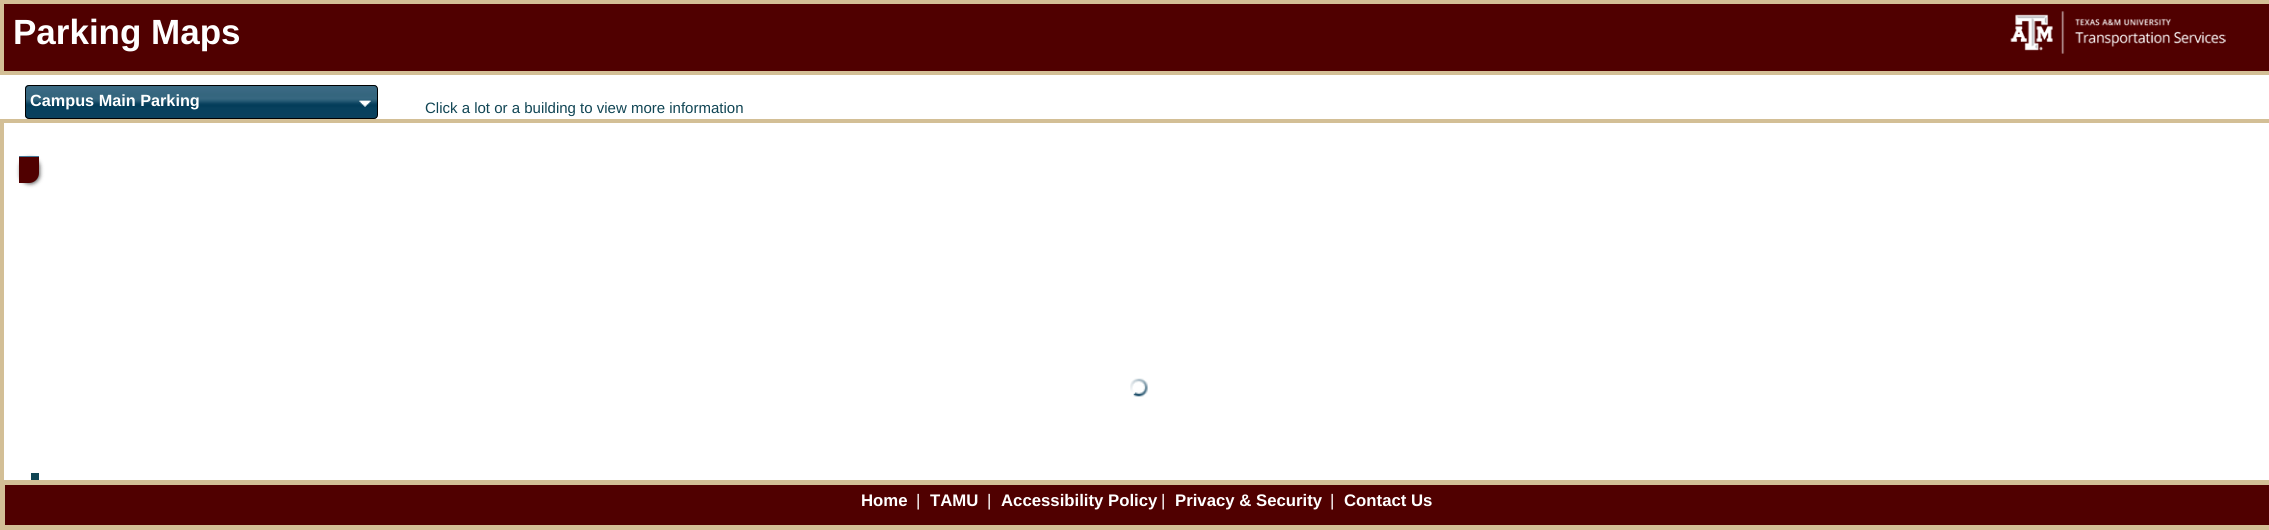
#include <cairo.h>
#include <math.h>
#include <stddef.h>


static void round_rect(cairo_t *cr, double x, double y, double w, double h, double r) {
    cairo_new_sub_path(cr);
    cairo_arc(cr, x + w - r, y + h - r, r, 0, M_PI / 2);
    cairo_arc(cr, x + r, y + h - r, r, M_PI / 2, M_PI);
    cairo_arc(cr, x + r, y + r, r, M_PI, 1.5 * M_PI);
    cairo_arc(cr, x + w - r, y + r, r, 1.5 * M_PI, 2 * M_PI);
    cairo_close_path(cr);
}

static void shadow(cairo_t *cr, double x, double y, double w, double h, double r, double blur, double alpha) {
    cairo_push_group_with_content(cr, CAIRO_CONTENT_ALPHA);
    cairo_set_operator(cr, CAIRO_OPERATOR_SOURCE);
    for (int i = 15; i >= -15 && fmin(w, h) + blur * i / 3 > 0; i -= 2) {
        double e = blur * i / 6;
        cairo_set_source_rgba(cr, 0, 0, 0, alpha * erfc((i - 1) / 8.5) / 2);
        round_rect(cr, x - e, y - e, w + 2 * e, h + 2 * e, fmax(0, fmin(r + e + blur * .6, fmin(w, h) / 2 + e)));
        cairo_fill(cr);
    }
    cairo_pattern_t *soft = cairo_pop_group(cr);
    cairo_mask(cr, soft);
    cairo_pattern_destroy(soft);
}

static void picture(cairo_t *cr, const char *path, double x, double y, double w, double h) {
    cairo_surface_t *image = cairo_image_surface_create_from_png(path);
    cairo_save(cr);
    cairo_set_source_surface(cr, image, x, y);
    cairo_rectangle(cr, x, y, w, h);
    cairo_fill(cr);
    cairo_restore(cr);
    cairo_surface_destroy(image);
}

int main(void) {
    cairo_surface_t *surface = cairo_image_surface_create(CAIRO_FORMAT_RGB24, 2269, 530);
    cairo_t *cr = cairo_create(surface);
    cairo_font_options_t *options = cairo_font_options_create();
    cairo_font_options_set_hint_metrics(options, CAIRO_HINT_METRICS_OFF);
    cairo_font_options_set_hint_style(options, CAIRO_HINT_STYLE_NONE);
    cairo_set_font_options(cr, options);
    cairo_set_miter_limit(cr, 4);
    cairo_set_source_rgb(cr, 1, 1, 1);
    cairo_paint(cr);
    cairo_set_source_rgb(cr, 0.314, 0, 0);
    cairo_rectangle(cr, 2, 2, 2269, 71);
    cairo_fill_preserve(cr);
    cairo_set_source_rgb(cr, 0.827, 0.749, 0.588);
    cairo_set_line_width(cr, 4);
    cairo_stroke(cr);
    cairo_select_font_face(cr, "Liberation Sans", CAIRO_FONT_SLANT_NORMAL, CAIRO_FONT_WEIGHT_BOLD);
    cairo_set_font_size(cr, 35);
    cairo_set_source_rgb(cr, 1, 1, 1);
    cairo_move_to(cr, 13, 44);
    cairo_show_text(cr, "Parking Maps");
    picture(cr, "img1.png", 2010, 11, 216, 43);
    picture(cr, "img2.png", 25, 85, 353, 34);
    round_rect(cr, 25.5, 85.5, 352, 33, 3.5);
    cairo_set_source_rgb(cr, 0, 0, 0);
    cairo_set_line_width(cr, 1);
    cairo_stroke(cr);
    cairo_set_font_size(cr, 16.25);
    cairo_set_source_rgb(cr, 1, 1, 1);
    cairo_move_to(cr, 30, 106);
    cairo_show_text(cr, "Campus Main Parking");
    picture(cr, "img3.png", 359, 100, 12, 7);
    cairo_select_font_face(cr, "Liberation Sans", CAIRO_FONT_SLANT_NORMAL, CAIRO_FONT_WEIGHT_NORMAL);
    cairo_set_font_size(cr, 15);
    cairo_set_source_rgb(cr, 0.063, 0.271, 0.329);
    cairo_move_to(cr, 425, 113);
    cairo_show_text(cr, "Click a lot or a building to view more information");
    picture(cr, "img4.png", 1130, 378, 18, 19);
    cairo_rectangle(cr, 2, 121, 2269, 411);
    cairo_set_source_rgb(cr, 0.827, 0.749, 0.588);
    cairo_set_line_width(cr, 4);
    cairo_stroke(cr);
    cairo_set_source_rgb(cr, 0.4, 0.4, 0.4);
    shadow(cr, 20, 158, 20, 26, 10, 2, 1);
    cairo_set_source_rgb(cr, 0.314, 0, 0);
    cairo_new_path(cr);
    cairo_move_to(cr, 19, 156);
    cairo_line_to(cr, 39, 156);
    cairo_line_to(cr, 39, 173);
    cairo_curve_to(cr, 39, 178.5, 34.5, 183, 29, 183);
    cairo_line_to(cr, 19, 183);
    cairo_close_path(cr);
    cairo_fill(cr);
    cairo_set_source_rgb(cr, 0.271, 0.475, 0.596);
    cairo_rectangle(cr, 19, 156, 20, 1);
    cairo_fill(cr);
    cairo_set_source_rgb(cr, 0.063, 0.271, 0.329);
    cairo_rectangle(cr, 31, 473, 8, 7);
    cairo_fill(cr);
    cairo_set_source_rgb(cr, 0.314, 0, 0);
    cairo_rectangle(cr, 2.5, 482.5, 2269, 45);
    cairo_fill_preserve(cr);
    cairo_set_source_rgb(cr, 0.827, 0.749, 0.588);
    cairo_set_line_width(cr, 5);
    cairo_stroke(cr);
    cairo_select_font_face(cr, "Liberation Sans", CAIRO_FONT_SLANT_NORMAL, CAIRO_FONT_WEIGHT_BOLD);
    cairo_set_font_size(cr, 16.75);
    cairo_set_source_rgb(cr, 1, 1, 1);
    cairo_move_to(cr, 861, 506);
    cairo_show_text(cr, "Home");
    cairo_select_font_face(cr, "Liberation Sans", CAIRO_FONT_SLANT_NORMAL, CAIRO_FONT_WEIGHT_NORMAL);
    cairo_move_to(cr, 916, 506);
    cairo_show_text(cr, "|");
    cairo_select_font_face(cr, "Liberation Sans", CAIRO_FONT_SLANT_NORMAL, CAIRO_FONT_WEIGHT_BOLD);
    cairo_move_to(cr, 930, 506);
    cairo_show_text(cr, "TAMU");
    cairo_select_font_face(cr, "Liberation Sans", CAIRO_FONT_SLANT_NORMAL, CAIRO_FONT_WEIGHT_NORMAL);
    cairo_move_to(cr, 987, 506);
    cairo_show_text(cr, "|");
    cairo_select_font_face(cr, "Liberation Sans", CAIRO_FONT_SLANT_NORMAL, CAIRO_FONT_WEIGHT_BOLD);
    cairo_move_to(cr, 1001, 506);
    cairo_show_text(cr, "Accessibility Policy");
    cairo_select_font_face(cr, "Liberation Sans", CAIRO_FONT_SLANT_NORMAL, CAIRO_FONT_WEIGHT_NORMAL);
    cairo_move_to(cr, 1161, 506);
    cairo_show_text(cr, "|");
    cairo_select_font_face(cr, "Liberation Sans", CAIRO_FONT_SLANT_NORMAL, CAIRO_FONT_WEIGHT_BOLD);
    cairo_move_to(cr, 1175, 506);
    cairo_show_text(cr, "Privacy & Security");
    cairo_select_font_face(cr, "Liberation Sans", CAIRO_FONT_SLANT_NORMAL, CAIRO_FONT_WEIGHT_NORMAL);
    cairo_move_to(cr, 1330, 506);
    cairo_show_text(cr, "|");
    cairo_select_font_face(cr, "Liberation Sans", CAIRO_FONT_SLANT_NORMAL, CAIRO_FONT_WEIGHT_BOLD);
    cairo_move_to(cr, 1344, 506);
    cairo_show_text(cr, "Contact Us");
    cairo_surface_write_to_png(surface, "page.png");
    cairo_font_options_destroy(options);
    cairo_destroy(cr);
    cairo_surface_destroy(surface);
    return 0;
}
